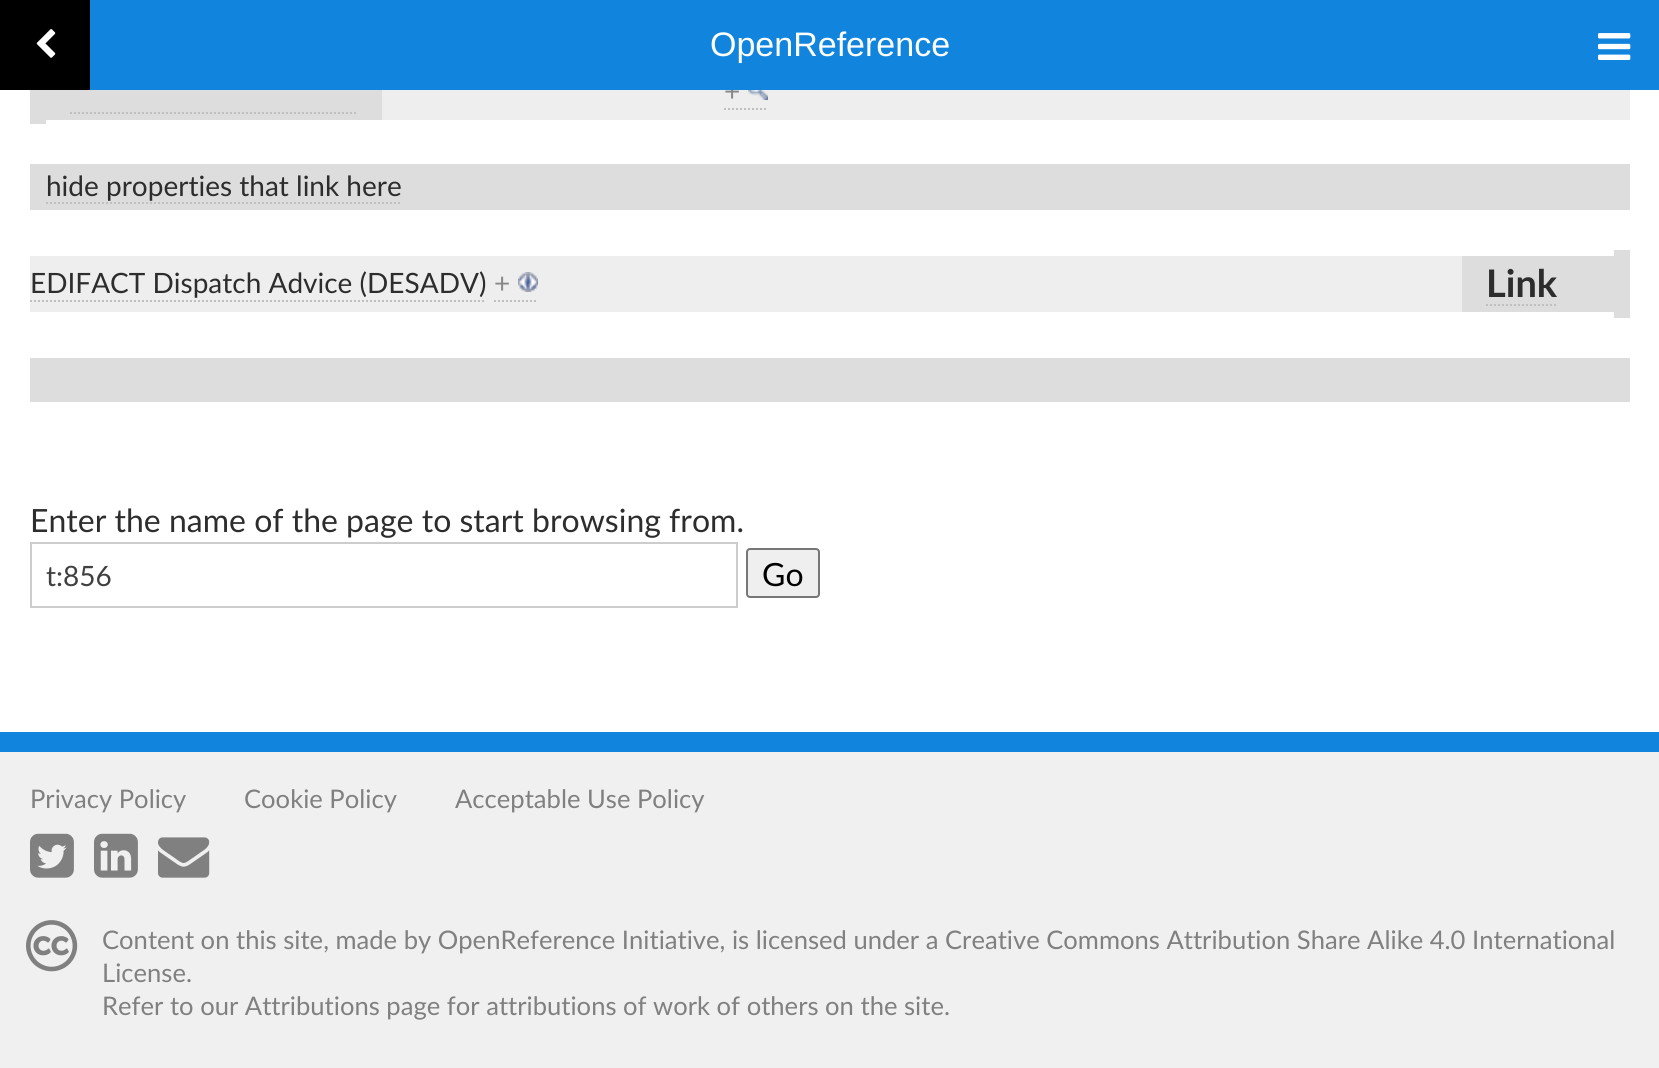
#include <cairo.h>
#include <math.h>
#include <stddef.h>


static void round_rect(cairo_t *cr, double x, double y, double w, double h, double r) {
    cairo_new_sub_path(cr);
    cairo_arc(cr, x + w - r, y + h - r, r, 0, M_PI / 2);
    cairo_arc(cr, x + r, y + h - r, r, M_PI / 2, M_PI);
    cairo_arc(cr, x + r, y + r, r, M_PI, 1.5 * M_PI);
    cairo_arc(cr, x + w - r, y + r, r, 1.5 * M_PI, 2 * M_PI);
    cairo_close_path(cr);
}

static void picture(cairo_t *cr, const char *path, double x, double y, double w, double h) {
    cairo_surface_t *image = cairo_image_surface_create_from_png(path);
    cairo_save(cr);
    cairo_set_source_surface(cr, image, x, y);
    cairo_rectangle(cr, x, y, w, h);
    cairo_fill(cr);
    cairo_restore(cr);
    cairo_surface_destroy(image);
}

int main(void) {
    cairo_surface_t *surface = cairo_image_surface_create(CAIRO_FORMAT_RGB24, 1659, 1068);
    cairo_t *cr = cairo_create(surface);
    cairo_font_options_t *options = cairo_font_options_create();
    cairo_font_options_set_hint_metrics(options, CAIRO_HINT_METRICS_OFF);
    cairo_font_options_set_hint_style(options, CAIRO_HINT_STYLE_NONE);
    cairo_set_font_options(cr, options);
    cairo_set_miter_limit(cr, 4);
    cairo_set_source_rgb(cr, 1, 1, 1);
    cairo_paint(cr);
    cairo_set_source_rgb(cr, 0.933, 0.933, 0.933);
    cairo_rectangle(cr, 382, 90, 1248, 30);
    cairo_fill(cr);
    cairo_select_font_face(cr, "Lato", CAIRO_FONT_SLANT_NORMAL, CAIRO_FONT_WEIGHT_NORMAL);
    cairo_set_font_size(cr, 28);
    cairo_set_source_rgb(cr, 0.533, 0.533, 0.533);
    cairo_move_to(cr, 724, 101);
    cairo_show_text(cr, "+");
    cairo_set_source_rgb(cr, 0.067, 0.522, 0.867);
    cairo_rectangle(cr, 90, 0, 1569, 90);
    cairo_fill(cr);
    cairo_set_source_rgb(cr, 0, 0, 0);
    cairo_rectangle(cr, 0, 0, 90, 90);
    cairo_fill(cr);
    picture(cr, "img1.png", 36, 29, 20, 29);
    cairo_select_font_face(cr, "Liberation Sans", CAIRO_FONT_SLANT_NORMAL, CAIRO_FONT_WEIGHT_NORMAL);
    cairo_set_font_size(cr, 34);
    cairo_set_source_rgb(cr, 1, 1, 1);
    cairo_move_to(cr, 710, 56);
    cairo_show_text(cr, "OpenReference");
    picture(cr, "img2.png", 1598, 33, 33, 27);
    cairo_set_source_rgb(cr, 0.867, 0.867, 0.867);
    cairo_rectangle(cr, 30, 90, 16, 34);
    cairo_fill(cr);
    cairo_rectangle(cr, 46, 90, 336, 30);
    cairo_fill(cr);
    cairo_new_path(cr);
    cairo_move_to(cr, 70, 113);
    cairo_line_to(cr, 358, 113);
    cairo_set_source_rgb(cr, 0.753, 0.753, 0.753);
    cairo_set_dash(cr, (double[]){2, 2}, 2, 0);
    cairo_stroke(cr);
    cairo_new_path(cr);
    cairo_move_to(cr, 724, 109);
    cairo_line_to(cr, 768, 109);
    cairo_stroke(cr);
    picture(cr, "img3.png", 748, 90, 20, 10);
    cairo_set_source_rgb(cr, 0.867, 0.867, 0.867);
    cairo_rectangle(cr, 30, 164, 1600, 46);
    cairo_fill(cr);
    cairo_select_font_face(cr, "Lato", CAIRO_FONT_SLANT_NORMAL, CAIRO_FONT_WEIGHT_NORMAL);
    cairo_set_font_size(cr, 28);
    cairo_set_source_rgb(cr, 0.176, 0.176, 0.176);
    cairo_move_to(cr, 46, 196);
    cairo_show_text(cr, "hide properties that link here");
    cairo_new_path(cr);
    cairo_move_to(cr, 46, 203);
    cairo_line_to(cr, 402, 203);
    cairo_set_source_rgb(cr, 0.753, 0.753, 0.753);
    cairo_stroke(cr);
    cairo_set_source_rgb(cr, 0.867, 0.867, 0.867);
    cairo_rectangle(cr, 1614, 250, 16, 68);
    cairo_fill(cr);
    cairo_set_source_rgb(cr, 0.933, 0.933, 0.933);
    cairo_rectangle(cr, 30, 256, 1432, 56);
    cairo_fill(cr);
    cairo_set_source_rgb(cr, 0.176, 0.176, 0.176);
    cairo_move_to(cr, 30, 293);
    cairo_show_text(cr, "EDIFACT Dispatch Advice (DESADV)");
    cairo_new_path(cr);
    cairo_move_to(cr, 30, 301);
    cairo_line_to(cr, 486, 301);
    cairo_set_source_rgb(cr, 0.753, 0.753, 0.753);
    cairo_stroke(cr);
    cairo_set_source_rgb(cr, 0.533, 0.533, 0.533);
    cairo_move_to(cr, 494, 293);
    cairo_show_text(cr, "+");
    cairo_new_path(cr);
    cairo_move_to(cr, 494, 301);
    cairo_line_to(cr, 538, 301);
    cairo_set_source_rgb(cr, 0.753, 0.753, 0.753);
    cairo_stroke(cr);
    picture(cr, "img4.png", 518, 272, 20, 20);
    cairo_set_source_rgb(cr, 0.867, 0.867, 0.867);
    cairo_rectangle(cr, 1462, 256, 152, 56);
    cairo_fill(cr);
    cairo_select_font_face(cr, "Lato", CAIRO_FONT_SLANT_NORMAL, CAIRO_FONT_WEIGHT_BOLD);
    cairo_set_font_size(cr, 38);
    cairo_set_source_rgb(cr, 0.176, 0.176, 0.176);
    cairo_move_to(cr, 1486, 297);
    cairo_show_text(cr, "Link");
    cairo_new_path(cr);
    cairo_move_to(cr, 1486, 305);
    cairo_line_to(cr, 1558, 305);
    cairo_set_source_rgb(cr, 0.753, 0.753, 0.753);
    cairo_stroke(cr);
    cairo_set_source_rgb(cr, 0.867, 0.867, 0.867);
    cairo_rectangle(cr, 30, 358, 1600, 44);
    cairo_fill(cr);
    cairo_select_font_face(cr, "Lato", CAIRO_FONT_SLANT_NORMAL, CAIRO_FONT_WEIGHT_NORMAL);
    cairo_set_font_size(cr, 32);
    cairo_set_source_rgb(cr, 0.176, 0.176, 0.176);
    cairo_move_to(cr, 30, 532);
    cairo_show_text(cr, "Enter the name of the page to start browsing from.");
    cairo_rectangle(cr, 31, 543, 706, 64);
    cairo_set_source_rgb(cr, 0.8, 0.8, 0.8);
    cairo_set_dash(cr, NULL, 0, 0);
    cairo_stroke(cr);
    cairo_set_font_size(cr, 28);
    cairo_set_source_rgb(cr, 0.251, 0.251, 0.251);
    cairo_move_to(cr, 46, 586);
    cairo_show_text(cr, "t:856");
    cairo_set_source_rgb(cr, 0.937, 0.937, 0.937);
    round_rect(cr, 747, 549, 72, 48, 3);
    cairo_fill_preserve(cr);
    cairo_set_source_rgb(cr, 0.463, 0.463, 0.463);
    cairo_stroke(cr);
    cairo_set_font_size(cr, 32);
    cairo_set_source_rgb(cr, 0, 0, 0);
    cairo_move_to(cr, 762, 586);
    cairo_show_text(cr, "Go");
    cairo_set_source_rgb(cr, 0.941, 0.941, 0.941);
    cairo_rectangle(cr, 0, 752, 1659, 316);
    cairo_fill(cr);
    cairo_set_source_rgb(cr, 0.067, 0.522, 0.867);
    cairo_rectangle(cr, 0, 732, 1659, 20);
    cairo_fill(cr);
    cairo_set_font_size(cr, 25.6);
    cairo_set_source_rgb(cr, 0.502, 0.502, 0.502);
    cairo_move_to(cr, 30, 808);
    cairo_show_text(cr, "Privacy Policy");
    cairo_move_to(cr, 244, 808);
    cairo_show_text(cr, "Cookie Policy");
    cairo_move_to(cr, 455, 808);
    cairo_show_text(cr, "Acceptable Use Policy");
    picture(cr, "img5.png", 30, 833, 44, 45);
    picture(cr, "img6.png", 94, 833, 44, 45);
    picture(cr, "img7.png", 158, 837, 52, 41);
    picture(cr, "img8.png", 26, 920, 52, 52);
    cairo_move_to(cr, 102, 949);
    cairo_show_text(cr, "Content on this site, made by OpenReference Initiative, is licensed under a Creative Commons Attribution Share Alike 4.0 International");
    cairo_move_to(cr, 102, 982);
    cairo_show_text(cr, "License.");
    cairo_move_to(cr, 102, 1015);
    cairo_show_text(cr, "Refer to our Attributions page for attributions of work of others on the site.");
    cairo_surface_write_to_png(surface, "page.png");
    cairo_font_options_destroy(options);
    cairo_destroy(cr);
    cairo_surface_destroy(surface);
    return 0;
}
